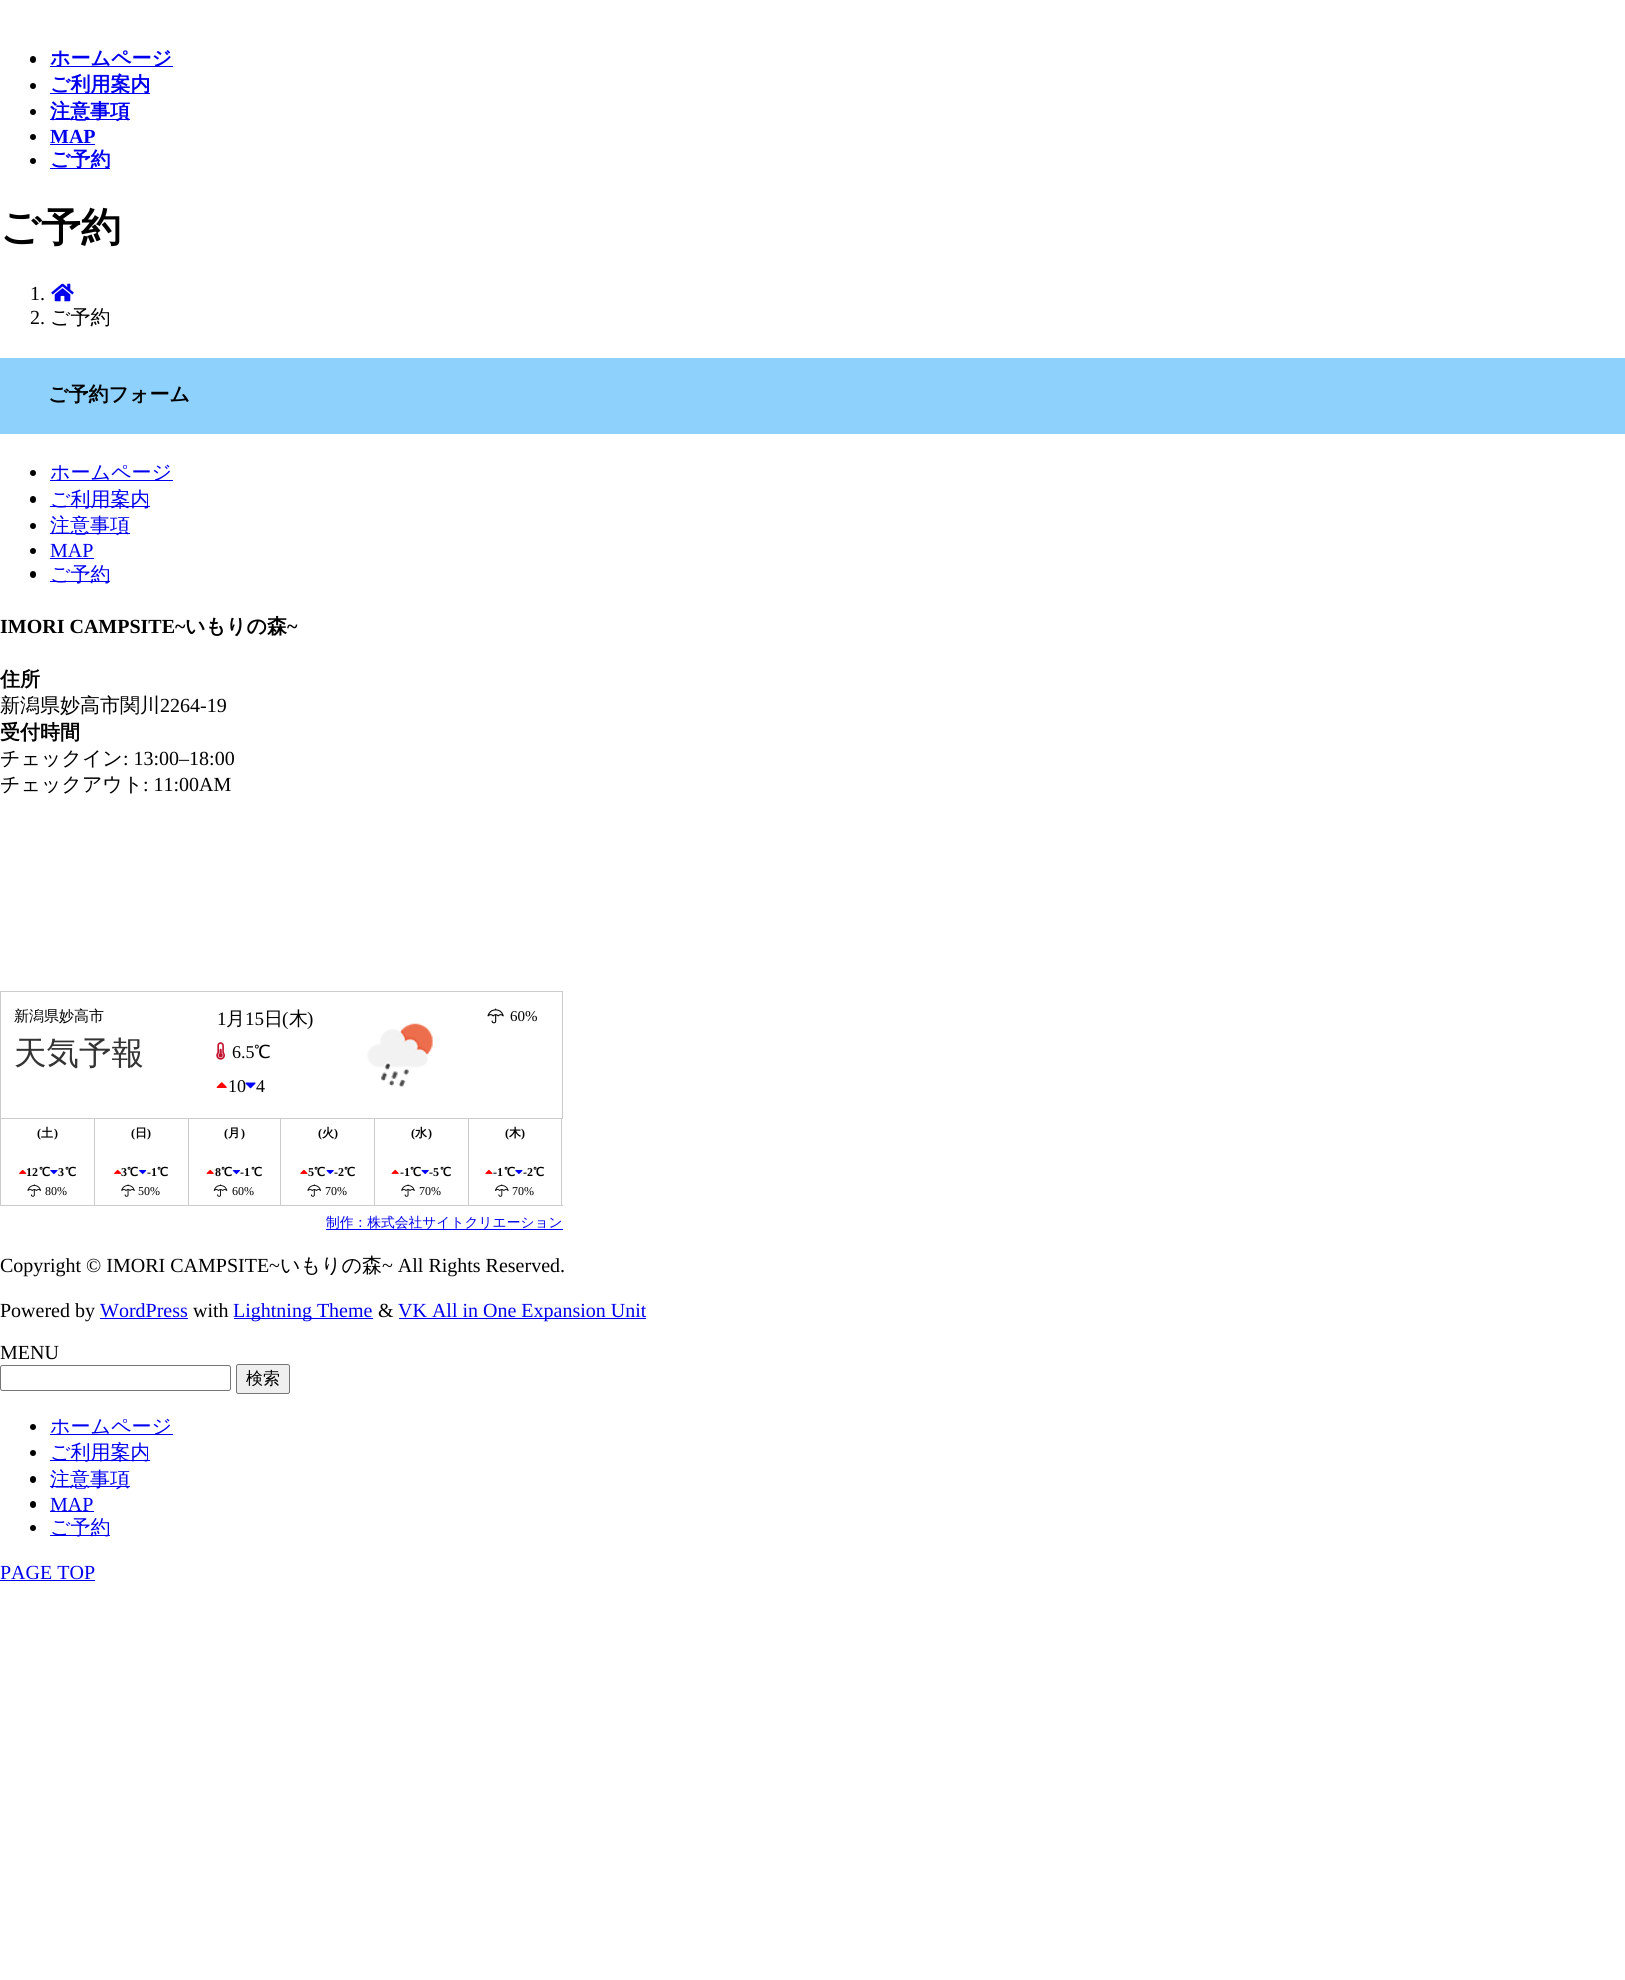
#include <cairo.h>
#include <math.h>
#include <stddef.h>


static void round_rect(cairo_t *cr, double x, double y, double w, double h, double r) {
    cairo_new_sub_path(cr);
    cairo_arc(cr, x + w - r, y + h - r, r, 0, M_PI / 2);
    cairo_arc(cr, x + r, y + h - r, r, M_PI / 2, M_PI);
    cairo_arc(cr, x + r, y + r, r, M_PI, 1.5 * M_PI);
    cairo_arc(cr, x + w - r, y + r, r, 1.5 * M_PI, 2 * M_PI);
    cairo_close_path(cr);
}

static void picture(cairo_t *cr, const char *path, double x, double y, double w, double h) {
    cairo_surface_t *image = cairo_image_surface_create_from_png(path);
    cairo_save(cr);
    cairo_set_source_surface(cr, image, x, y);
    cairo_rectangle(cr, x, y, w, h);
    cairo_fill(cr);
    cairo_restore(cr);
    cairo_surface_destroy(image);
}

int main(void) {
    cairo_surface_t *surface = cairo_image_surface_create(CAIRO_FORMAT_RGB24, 1625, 1980);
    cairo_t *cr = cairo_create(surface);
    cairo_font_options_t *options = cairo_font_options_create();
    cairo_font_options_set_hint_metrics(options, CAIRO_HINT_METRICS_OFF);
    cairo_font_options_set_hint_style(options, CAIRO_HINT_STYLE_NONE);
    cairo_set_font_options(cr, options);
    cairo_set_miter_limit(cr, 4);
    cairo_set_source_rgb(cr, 1, 1, 1);
    cairo_paint(cr);
    cairo_set_source_rgb(cr, 0, 0, 0);
    round_rect(cr, 30, 56, 6, 7, 3);
    cairo_fill(cr);
    cairo_set_source_rgb(cr, 0, 0, 0.933);
    cairo_rectangle(cr, 50, 66, 123, 1);
    cairo_fill(cr);
    cairo_select_font_face(cr, "WenQuanYi Zen Hei", CAIRO_FONT_SLANT_NORMAL, CAIRO_FONT_WEIGHT_BOLD);
    cairo_set_font_size(cr, 20);
    cairo_move_to(cr, 50, 65);
    cairo_show_text(cr, "ホームページ");
    cairo_set_source_rgb(cr, 0, 0, 0);
    cairo_new_path(cr);
    cairo_arc(cr, 33, 86, 3, 0, 2 * M_PI);
    cairo_fill(cr);
    cairo_set_source_rgb(cr, 0, 0, 0.933);
    cairo_rectangle(cr, 50, 93, 100, 1);
    cairo_fill(cr);
    cairo_move_to(cr, 50, 91);
    cairo_show_text(cr, "ご利用案内");
    cairo_set_source_rgb(cr, 0, 0, 0);
    cairo_new_path(cr);
    cairo_arc(cr, 33, 112, 3, 0, 2 * M_PI);
    cairo_fill(cr);
    cairo_set_source_rgb(cr, 0, 0, 0.933);
    cairo_rectangle(cr, 50, 119, 80, 1);
    cairo_fill(cr);
    cairo_move_to(cr, 50, 118);
    cairo_show_text(cr, "注意事項");
    cairo_set_source_rgb(cr, 0, 0, 0);
    cairo_new_path(cr);
    cairo_arc(cr, 33, 137, 3, 0, 2 * M_PI);
    cairo_fill(cr);
    cairo_select_font_face(cr, "Liberation Serif", CAIRO_FONT_SLANT_NORMAL, CAIRO_FONT_WEIGHT_BOLD);
    cairo_set_source_rgb(cr, 0, 0, 0.933);
    cairo_move_to(cr, 50, 143);
    cairo_show_text(cr, "MAP");
    cairo_rectangle(cr, 50, 144, 45, 1);
    cairo_fill(cr);
    cairo_set_source_rgb(cr, 0, 0, 0);
    cairo_arc(cr, 33, 161, 3, 0, 2 * M_PI);
    cairo_fill(cr);
    cairo_set_source_rgb(cr, 0, 0, 0.933);
    cairo_rectangle(cr, 50, 168, 60, 1);
    cairo_fill(cr);
    cairo_select_font_face(cr, "WenQuanYi Zen Hei", CAIRO_FONT_SLANT_NORMAL, CAIRO_FONT_WEIGHT_BOLD);
    cairo_move_to(cr, 50, 166);
    cairo_show_text(cr, "ご予約");
    cairo_set_font_size(cr, 40);
    cairo_set_source_rgb(cr, 0, 0, 0);
    cairo_move_to(cr, 0, 241);
    cairo_show_text(cr, "ご予約");
    cairo_select_font_face(cr, "Liberation Serif", CAIRO_FONT_SLANT_NORMAL, CAIRO_FONT_WEIGHT_NORMAL);
    cairo_set_font_size(cr, 20);
    cairo_move_to(cr, 30, 300);
    cairo_show_text(cr, "1.");
    picture(cr, "img1.png", 51, 283, 23, 19);
    cairo_move_to(cr, 30, 324);
    cairo_show_text(cr, "2.");
    cairo_select_font_face(cr, "WenQuanYi Zen Hei Medium", CAIRO_FONT_SLANT_NORMAL, CAIRO_FONT_WEIGHT_NORMAL);
    cairo_move_to(cr, 50, 324);
    cairo_show_text(cr, "ご予約");
    cairo_set_source_rgb(cr, 0.557, 0.82, 0.988);
    cairo_rectangle(cr, 0, 358, 1625, 76);
    cairo_fill(cr);
    cairo_select_font_face(cr, "WenQuanYi Zen Hei", CAIRO_FONT_SLANT_NORMAL, CAIRO_FONT_WEIGHT_BOLD);
    cairo_set_source_rgb(cr, 0, 0, 0);
    cairo_move_to(cr, 48, 401);
    cairo_show_text(cr, "ご予約フォーム");
    cairo_new_path(cr);
    cairo_arc(cr, 33, 473, 3, 0, 2 * M_PI);
    cairo_fill(cr);
    cairo_set_source_rgb(cr, 0, 0, 0.933);
    cairo_rectangle(cr, 50, 480, 123, 1);
    cairo_fill(cr);
    cairo_select_font_face(cr, "WenQuanYi Zen Hei Medium", CAIRO_FONT_SLANT_NORMAL, CAIRO_FONT_WEIGHT_NORMAL);
    cairo_move_to(cr, 50, 479);
    cairo_show_text(cr, "ホームページ");
    cairo_set_source_rgb(cr, 0, 0, 0);
    round_rect(cr, 30, 496, 6, 7, 3);
    cairo_fill(cr);
    cairo_set_source_rgb(cr, 0, 0, 0.933);
    cairo_rectangle(cr, 50, 506, 100, 1);
    cairo_fill(cr);
    cairo_move_to(cr, 50, 506);
    cairo_show_text(cr, "ご利用案内");
    cairo_set_source_rgb(cr, 0, 0, 0);
    cairo_new_path(cr);
    cairo_arc(cr, 33, 526, 3, 0, 2 * M_PI);
    cairo_fill(cr);
    cairo_set_source_rgb(cr, 0, 0, 0.933);
    cairo_rectangle(cr, 50, 533, 80, 1);
    cairo_fill(cr);
    cairo_move_to(cr, 50, 532);
    cairo_show_text(cr, "注意事項");
    cairo_set_source_rgb(cr, 0, 0, 0);
    cairo_new_path(cr);
    cairo_arc(cr, 33, 551, 3, 0, 2 * M_PI);
    cairo_fill(cr);
    cairo_select_font_face(cr, "Liberation Serif", CAIRO_FONT_SLANT_NORMAL, CAIRO_FONT_WEIGHT_NORMAL);
    cairo_set_source_rgb(cr, 0, 0, 0.933);
    cairo_move_to(cr, 50, 557);
    cairo_show_text(cr, "MAP");
    cairo_rectangle(cr, 50, 558, 44, 1);
    cairo_fill(cr);
    cairo_set_source_rgb(cr, 0, 0, 0);
    round_rect(cr, 30, 571, 6, 7, 3);
    cairo_fill(cr);
    cairo_set_source_rgb(cr, 0, 0, 0.933);
    cairo_rectangle(cr, 50, 581, 60, 1);
    cairo_fill(cr);
    cairo_select_font_face(cr, "WenQuanYi Zen Hei Medium", CAIRO_FONT_SLANT_NORMAL, CAIRO_FONT_WEIGHT_NORMAL);
    cairo_move_to(cr, 50, 581);
    cairo_show_text(cr, "ご予約");
    cairo_select_font_face(cr, "Liberation Serif", CAIRO_FONT_SLANT_NORMAL, CAIRO_FONT_WEIGHT_BOLD);
    cairo_set_source_rgb(cr, 0, 0, 0);
    cairo_move_to(cr, 0, 633);
    cairo_show_text(cr, "IMORI CAMPSITE~");
    cairo_select_font_face(cr, "WenQuanYi Zen Hei", CAIRO_FONT_SLANT_NORMAL, CAIRO_FONT_WEIGHT_BOLD);
    cairo_move_to(cr, 185, 633);
    cairo_show_text(cr, "いもりの森");
    cairo_select_font_face(cr, "Liberation Serif", CAIRO_FONT_SLANT_NORMAL, CAIRO_FONT_WEIGHT_BOLD);
    cairo_move_to(cr, 287, 633);
    cairo_show_text(cr, "~");
    cairo_select_font_face(cr, "WenQuanYi Zen Hei", CAIRO_FONT_SLANT_NORMAL, CAIRO_FONT_WEIGHT_BOLD);
    cairo_move_to(cr, 0, 686);
    cairo_show_text(cr, "住所");
    cairo_select_font_face(cr, "WenQuanYi Zen Hei Medium", CAIRO_FONT_SLANT_NORMAL, CAIRO_FONT_WEIGHT_NORMAL);
    cairo_move_to(cr, 0, 712);
    cairo_show_text(cr, "新潟県妙高市関川");
    cairo_select_font_face(cr, "Liberation Serif", CAIRO_FONT_SLANT_NORMAL, CAIRO_FONT_WEIGHT_NORMAL);
    cairo_move_to(cr, 160, 712);
    cairo_show_text(cr, "2264-19");
    cairo_select_font_face(cr, "WenQuanYi Zen Hei", CAIRO_FONT_SLANT_NORMAL, CAIRO_FONT_WEIGHT_BOLD);
    cairo_move_to(cr, 0, 739);
    cairo_show_text(cr, "受付時間");
    cairo_select_font_face(cr, "WenQuanYi Zen Hei Medium", CAIRO_FONT_SLANT_NORMAL, CAIRO_FONT_WEIGHT_NORMAL);
    cairo_move_to(cr, 0, 765);
    cairo_show_text(cr, "チェックイン");
    cairo_select_font_face(cr, "Liberation Serif", CAIRO_FONT_SLANT_NORMAL, CAIRO_FONT_WEIGHT_NORMAL);
    cairo_move_to(cr, 123, 765);
    cairo_show_text(cr, ": 13:00–18:00");
    cairo_select_font_face(cr, "WenQuanYi Zen Hei Medium", CAIRO_FONT_SLANT_NORMAL, CAIRO_FONT_WEIGHT_NORMAL);
    cairo_move_to(cr, 0, 791);
    cairo_show_text(cr, "チェックアウト");
    cairo_select_font_face(cr, "Liberation Serif", CAIRO_FONT_SLANT_NORMAL, CAIRO_FONT_WEIGHT_NORMAL);
    cairo_move_to(cr, 143, 791);
    cairo_show_text(cr, ": 11:00AM");
    cairo_rectangle(cr, 0.5, 991.5, 562, 127);
    cairo_set_source_rgb(cr, 0.8, 0.8, 0.8);
    cairo_set_line_width(cr, 1);
    cairo_stroke(cr);
    cairo_select_font_face(cr, "WenQuanYi Zen Hei Medium", CAIRO_FONT_SLANT_NORMAL, CAIRO_FONT_WEIGHT_NORMAL);
    cairo_set_font_size(cr, 15);
    cairo_set_source_rgb(cr, 0, 0, 0);
    cairo_move_to(cr, 14, 1021);
    cairo_show_text(cr, "新潟県妙高市");
    cairo_set_font_size(cr, 32.5);
    cairo_set_source_rgb(cr, 0.2, 0.2, 0.2);
    cairo_move_to(cr, 14, 1064);
    cairo_show_text(cr, "天気予報");
    cairo_select_font_face(cr, "Liberation Serif", CAIRO_FONT_SLANT_NORMAL, CAIRO_FONT_WEIGHT_NORMAL);
    cairo_set_font_size(cr, 19);
    cairo_set_source_rgb(cr, 0, 0, 0);
    cairo_move_to(cr, 217, 1025);
    cairo_show_text(cr, "1");
    cairo_select_font_face(cr, "WenQuanYi Zen Hei Medium", CAIRO_FONT_SLANT_NORMAL, CAIRO_FONT_WEIGHT_NORMAL);
    cairo_move_to(cr, 226, 1025);
    cairo_show_text(cr, "月");
    cairo_select_font_face(cr, "Liberation Serif", CAIRO_FONT_SLANT_NORMAL, CAIRO_FONT_WEIGHT_NORMAL);
    cairo_move_to(cr, 245, 1025);
    cairo_show_text(cr, "15");
    cairo_select_font_face(cr, "WenQuanYi Zen Hei Medium", CAIRO_FONT_SLANT_NORMAL, CAIRO_FONT_WEIGHT_NORMAL);
    cairo_move_to(cr, 264, 1025);
    cairo_show_text(cr, "日");
    cairo_select_font_face(cr, "Liberation Serif", CAIRO_FONT_SLANT_NORMAL, CAIRO_FONT_WEIGHT_NORMAL);
    cairo_move_to(cr, 282, 1025);
    cairo_show_text(cr, "(");
    cairo_select_font_face(cr, "WenQuanYi Zen Hei Medium", CAIRO_FONT_SLANT_NORMAL, CAIRO_FONT_WEIGHT_NORMAL);
    cairo_move_to(cr, 289, 1025);
    cairo_show_text(cr, "木");
    cairo_select_font_face(cr, "Liberation Serif", CAIRO_FONT_SLANT_NORMAL, CAIRO_FONT_WEIGHT_NORMAL);
    cairo_move_to(cr, 307, 1025);
    cairo_show_text(cr, ")");
    picture(cr, "img2.png", 216, 1042, 9, 18);
    cairo_set_font_size(cr, 18);
    cairo_move_to(cr, 232, 1058);
    cairo_show_text(cr, "6.5");
    cairo_select_font_face(cr, "WenQuanYi Zen Hei Medium", CAIRO_FONT_SLANT_NORMAL, CAIRO_FONT_WEIGHT_NORMAL);
    cairo_move_to(cr, 254, 1058);
    cairo_show_text(cr, "℃");
    picture(cr, "img3.png", 216, 1082, 11, 6);
    cairo_select_font_face(cr, "Liberation Serif", CAIRO_FONT_SLANT_NORMAL, CAIRO_FONT_WEIGHT_NORMAL);
    cairo_move_to(cr, 228, 1092);
    cairo_show_text(cr, "10");
    picture(cr, "img4.png", 245, 1082, 11, 7);
    cairo_move_to(cr, 256, 1092);
    cairo_show_text(cr, "4");
    picture(cr, "img5.png", 487, 1008, 17, 16);
    cairo_set_font_size(cr, 15);
    cairo_move_to(cr, 510, 1021);
    cairo_show_text(cr, "60%");
    picture(cr, "img6.png", 367, 1023, 66, 64);
    cairo_set_source_rgb(cr, 0.8, 0.8, 0.8);
    cairo_rectangle(cr, 0, 1205, 468, 1);
    cairo_fill(cr);
    cairo_rectangle(cr, 0, 1119, 1, 87);
    cairo_fill(cr);
    cairo_select_font_face(cr, "Liberation Serif", CAIRO_FONT_SLANT_NORMAL, CAIRO_FONT_WEIGHT_BOLD);
    cairo_set_font_size(cr, 12);
    cairo_set_source_rgb(cr, 0, 0, 0);
    cairo_move_to(cr, 37, 1137);
    cairo_show_text(cr, "(");
    cairo_select_font_face(cr, "WenQuanYi Zen Hei", CAIRO_FONT_SLANT_NORMAL, CAIRO_FONT_WEIGHT_BOLD);
    cairo_move_to(cr, 41, 1137);
    cairo_show_text(cr, "土");
    cairo_select_font_face(cr, "Liberation Serif", CAIRO_FONT_SLANT_NORMAL, CAIRO_FONT_WEIGHT_BOLD);
    cairo_move_to(cr, 54, 1137);
    cairo_show_text(cr, ")");
    picture(cr, "img7.png", 19, 1169, 8, 5);
    cairo_move_to(cr, 26, 1176);
    cairo_show_text(cr, "12");
    cairo_select_font_face(cr, "WenQuanYi Zen Hei", CAIRO_FONT_SLANT_NORMAL, CAIRO_FONT_WEIGHT_BOLD);
    cairo_move_to(cr, 39, 1176);
    cairo_show_text(cr, "℃");
    picture(cr, "img8.png", 50, 1170, 8, 5);
    cairo_select_font_face(cr, "Liberation Serif", CAIRO_FONT_SLANT_NORMAL, CAIRO_FONT_WEIGHT_BOLD);
    cairo_move_to(cr, 58, 1176);
    cairo_show_text(cr, "3");
    cairo_select_font_face(cr, "WenQuanYi Zen Hei", CAIRO_FONT_SLANT_NORMAL, CAIRO_FONT_WEIGHT_BOLD);
    cairo_move_to(cr, 65, 1176);
    cairo_show_text(cr, "℃");
    picture(cr, "img9.png", 27, 1184, 14, 13);
    cairo_select_font_face(cr, "Liberation Serif", CAIRO_FONT_SLANT_NORMAL, CAIRO_FONT_WEIGHT_NORMAL);
    cairo_move_to(cr, 45, 1195);
    cairo_show_text(cr, "80%");
    cairo_set_source_rgb(cr, 0.8, 0.8, 0.8);
    cairo_rectangle(cr, 94, 1119, 1, 87);
    cairo_fill(cr);
    cairo_select_font_face(cr, "Liberation Serif", CAIRO_FONT_SLANT_NORMAL, CAIRO_FONT_WEIGHT_BOLD);
    cairo_set_source_rgb(cr, 0, 0, 0);
    cairo_move_to(cr, 131, 1137);
    cairo_show_text(cr, "(");
    cairo_select_font_face(cr, "WenQuanYi Zen Hei", CAIRO_FONT_SLANT_NORMAL, CAIRO_FONT_WEIGHT_BOLD);
    cairo_move_to(cr, 135, 1137);
    cairo_show_text(cr, "日");
    cairo_select_font_face(cr, "Liberation Serif", CAIRO_FONT_SLANT_NORMAL, CAIRO_FONT_WEIGHT_BOLD);
    cairo_move_to(cr, 147, 1137);
    cairo_show_text(cr, ")");
    picture(cr, "img7.png", 114, 1169, 8, 5);
    cairo_move_to(cr, 121, 1176);
    cairo_show_text(cr, "3");
    cairo_select_font_face(cr, "WenQuanYi Zen Hei", CAIRO_FONT_SLANT_NORMAL, CAIRO_FONT_WEIGHT_BOLD);
    cairo_move_to(cr, 127, 1176);
    cairo_show_text(cr, "℃");
    picture(cr, "img10.png", 139, 1170, 8, 5);
    cairo_select_font_face(cr, "Liberation Serif", CAIRO_FONT_SLANT_NORMAL, CAIRO_FONT_WEIGHT_BOLD);
    cairo_move_to(cr, 147, 1176);
    cairo_show_text(cr, "-1");
    cairo_select_font_face(cr, "WenQuanYi Zen Hei", CAIRO_FONT_SLANT_NORMAL, CAIRO_FONT_WEIGHT_BOLD);
    cairo_move_to(cr, 157, 1176);
    cairo_show_text(cr, "℃");
    picture(cr, "img11.png", 121, 1184, 14, 13);
    cairo_select_font_face(cr, "Liberation Serif", CAIRO_FONT_SLANT_NORMAL, CAIRO_FONT_WEIGHT_NORMAL);
    cairo_move_to(cr, 138, 1195);
    cairo_show_text(cr, "50%");
    cairo_set_source_rgb(cr, 0.8, 0.8, 0.8);
    cairo_rectangle(cr, 188, 1119, 1, 87);
    cairo_fill(cr);
    cairo_select_font_face(cr, "Liberation Serif", CAIRO_FONT_SLANT_NORMAL, CAIRO_FONT_WEIGHT_BOLD);
    cairo_set_source_rgb(cr, 0, 0, 0);
    cairo_move_to(cr, 224, 1137);
    cairo_show_text(cr, "(");
    cairo_select_font_face(cr, "WenQuanYi Zen Hei", CAIRO_FONT_SLANT_NORMAL, CAIRO_FONT_WEIGHT_BOLD);
    cairo_move_to(cr, 228, 1137);
    cairo_show_text(cr, "月");
    cairo_select_font_face(cr, "Liberation Serif", CAIRO_FONT_SLANT_NORMAL, CAIRO_FONT_WEIGHT_BOLD);
    cairo_move_to(cr, 241, 1137);
    cairo_show_text(cr, ")");
    picture(cr, "img12.png", 206, 1169, 8, 5);
    cairo_move_to(cr, 215, 1176);
    cairo_show_text(cr, "8");
    cairo_select_font_face(cr, "WenQuanYi Zen Hei", CAIRO_FONT_SLANT_NORMAL, CAIRO_FONT_WEIGHT_BOLD);
    cairo_move_to(cr, 221, 1176);
    cairo_show_text(cr, "℃");
    picture(cr, "img13.png", 232, 1170, 8, 5);
    cairo_select_font_face(cr, "Liberation Serif", CAIRO_FONT_SLANT_NORMAL, CAIRO_FONT_WEIGHT_BOLD);
    cairo_move_to(cr, 240, 1176);
    cairo_show_text(cr, "-1");
    cairo_select_font_face(cr, "WenQuanYi Zen Hei", CAIRO_FONT_SLANT_NORMAL, CAIRO_FONT_WEIGHT_BOLD);
    cairo_move_to(cr, 251, 1176);
    cairo_show_text(cr, "℃");
    picture(cr, "img14.png", 213, 1184, 15, 13);
    cairo_select_font_face(cr, "Liberation Serif", CAIRO_FONT_SLANT_NORMAL, CAIRO_FONT_WEIGHT_NORMAL);
    cairo_move_to(cr, 232, 1195);
    cairo_show_text(cr, "60%");
    cairo_set_source_rgb(cr, 0.8, 0.8, 0.8);
    cairo_rectangle(cr, 280, 1119, 1, 87);
    cairo_fill(cr);
    cairo_select_font_face(cr, "Liberation Serif", CAIRO_FONT_SLANT_NORMAL, CAIRO_FONT_WEIGHT_BOLD);
    cairo_set_source_rgb(cr, 0, 0, 0);
    cairo_move_to(cr, 318, 1137);
    cairo_show_text(cr, "(");
    cairo_select_font_face(cr, "WenQuanYi Zen Hei", CAIRO_FONT_SLANT_NORMAL, CAIRO_FONT_WEIGHT_BOLD);
    cairo_move_to(cr, 322, 1137);
    cairo_show_text(cr, "火");
    cairo_select_font_face(cr, "Liberation Serif", CAIRO_FONT_SLANT_NORMAL, CAIRO_FONT_WEIGHT_BOLD);
    cairo_move_to(cr, 334, 1137);
    cairo_show_text(cr, ")");
    picture(cr, "img15.png", 300, 1169, 8, 5);
    cairo_move_to(cr, 308, 1176);
    cairo_show_text(cr, "5");
    cairo_select_font_face(cr, "WenQuanYi Zen Hei", CAIRO_FONT_SLANT_NORMAL, CAIRO_FONT_WEIGHT_BOLD);
    cairo_move_to(cr, 314, 1176);
    cairo_show_text(cr, "℃");
    picture(cr, "img16.png", 326, 1170, 8, 5);
    cairo_select_font_face(cr, "Liberation Serif", CAIRO_FONT_SLANT_NORMAL, CAIRO_FONT_WEIGHT_BOLD);
    cairo_move_to(cr, 334, 1176);
    cairo_show_text(cr, "-2");
    cairo_select_font_face(cr, "WenQuanYi Zen Hei", CAIRO_FONT_SLANT_NORMAL, CAIRO_FONT_WEIGHT_BOLD);
    cairo_move_to(cr, 344, 1176);
    cairo_show_text(cr, "℃");
    picture(cr, "img9.png", 307, 1184, 14, 13);
    cairo_select_font_face(cr, "Liberation Serif", CAIRO_FONT_SLANT_NORMAL, CAIRO_FONT_WEIGHT_NORMAL);
    cairo_move_to(cr, 325, 1195);
    cairo_show_text(cr, "70%");
    cairo_set_source_rgb(cr, 0.8, 0.8, 0.8);
    cairo_rectangle(cr, 374, 1119, 1, 87);
    cairo_fill(cr);
    cairo_select_font_face(cr, "Liberation Serif", CAIRO_FONT_SLANT_NORMAL, CAIRO_FONT_WEIGHT_BOLD);
    cairo_set_source_rgb(cr, 0, 0, 0);
    cairo_move_to(cr, 411, 1137);
    cairo_show_text(cr, "(");
    cairo_select_font_face(cr, "WenQuanYi Zen Hei", CAIRO_FONT_SLANT_NORMAL, CAIRO_FONT_WEIGHT_BOLD);
    cairo_move_to(cr, 415, 1137);
    cairo_show_text(cr, "水");
    cairo_select_font_face(cr, "Liberation Serif", CAIRO_FONT_SLANT_NORMAL, CAIRO_FONT_WEIGHT_BOLD);
    cairo_move_to(cr, 428, 1137);
    cairo_show_text(cr, ")");
    picture(cr, "img12.png", 391, 1169, 8, 5);
    cairo_move_to(cr, 400, 1176);
    cairo_show_text(cr, "-1");
    cairo_select_font_face(cr, "WenQuanYi Zen Hei", CAIRO_FONT_SLANT_NORMAL, CAIRO_FONT_WEIGHT_BOLD);
    cairo_move_to(cr, 410, 1176);
    cairo_show_text(cr, "℃");
    picture(cr, "img16.png", 421, 1170, 8, 5);
    cairo_select_font_face(cr, "Liberation Serif", CAIRO_FONT_SLANT_NORMAL, CAIRO_FONT_WEIGHT_BOLD);
    cairo_move_to(cr, 429, 1176);
    cairo_show_text(cr, "-5");
    cairo_select_font_face(cr, "WenQuanYi Zen Hei", CAIRO_FONT_SLANT_NORMAL, CAIRO_FONT_WEIGHT_BOLD);
    cairo_move_to(cr, 440, 1176);
    cairo_show_text(cr, "℃");
    picture(cr, "img11.png", 401, 1184, 14, 13);
    cairo_select_font_face(cr, "Liberation Serif", CAIRO_FONT_SLANT_NORMAL, CAIRO_FONT_WEIGHT_NORMAL);
    cairo_move_to(cr, 419, 1195);
    cairo_show_text(cr, "70%");
    cairo_set_source_rgb(cr, 0.8, 0.8, 0.8);
    cairo_rectangle(cr, 561, 1119, 1, 87);
    cairo_fill(cr);
    cairo_rectangle(cr, 468, 1205, 95, 1);
    cairo_fill(cr);
    cairo_rectangle(cr, 468, 1119, 1, 87);
    cairo_fill(cr);
    cairo_select_font_face(cr, "Liberation Serif", CAIRO_FONT_SLANT_NORMAL, CAIRO_FONT_WEIGHT_BOLD);
    cairo_set_source_rgb(cr, 0, 0, 0);
    cairo_move_to(cr, 505, 1137);
    cairo_show_text(cr, "(");
    cairo_select_font_face(cr, "WenQuanYi Zen Hei", CAIRO_FONT_SLANT_NORMAL, CAIRO_FONT_WEIGHT_BOLD);
    cairo_move_to(cr, 509, 1137);
    cairo_show_text(cr, "木");
    cairo_select_font_face(cr, "Liberation Serif", CAIRO_FONT_SLANT_NORMAL, CAIRO_FONT_WEIGHT_BOLD);
    cairo_move_to(cr, 521, 1137);
    cairo_show_text(cr, ")");
    picture(cr, "img15.png", 485, 1169, 8, 5);
    cairo_move_to(cr, 493, 1176);
    cairo_show_text(cr, "-1");
    cairo_select_font_face(cr, "WenQuanYi Zen Hei", CAIRO_FONT_SLANT_NORMAL, CAIRO_FONT_WEIGHT_BOLD);
    cairo_move_to(cr, 504, 1176);
    cairo_show_text(cr, "℃");
    picture(cr, "img8.png", 515, 1170, 8, 5);
    cairo_select_font_face(cr, "Liberation Serif", CAIRO_FONT_SLANT_NORMAL, CAIRO_FONT_WEIGHT_BOLD);
    cairo_move_to(cr, 523, 1176);
    cairo_show_text(cr, "-2");
    cairo_select_font_face(cr, "WenQuanYi Zen Hei", CAIRO_FONT_SLANT_NORMAL, CAIRO_FONT_WEIGHT_BOLD);
    cairo_move_to(cr, 533, 1176);
    cairo_show_text(cr, "℃");
    picture(cr, "img17.png", 495, 1184, 14, 13);
    cairo_select_font_face(cr, "Liberation Serif", CAIRO_FONT_SLANT_NORMAL, CAIRO_FONT_WEIGHT_NORMAL);
    cairo_move_to(cr, 512, 1195);
    cairo_show_text(cr, "70%");
    cairo_select_font_face(cr, "WenQuanYi Zen Hei Medium", CAIRO_FONT_SLANT_NORMAL, CAIRO_FONT_WEIGHT_NORMAL);
    cairo_set_font_size(cr, 13.75);
    cairo_set_source_rgb(cr, 0, 0, 0.933);
    cairo_move_to(cr, 326, 1227);
    cairo_show_text(cr, "制作：株式会社サイトクリエーション");
    cairo_set_source_rgb(cr, 0, 0, 1);
    cairo_rectangle(cr, 326, 1229, 237, 1);
    cairo_fill(cr);
    cairo_select_font_face(cr, "Liberation Serif", CAIRO_FONT_SLANT_NORMAL, CAIRO_FONT_WEIGHT_NORMAL);
    cairo_set_font_size(cr, 20);
    cairo_set_source_rgb(cr, 0, 0, 0);
    cairo_move_to(cr, 0, 1272);
    cairo_show_text(cr, "Copyright © IMORI CAMPSITE~");
    cairo_select_font_face(cr, "WenQuanYi Zen Hei Medium", CAIRO_FONT_SLANT_NORMAL, CAIRO_FONT_WEIGHT_NORMAL);
    cairo_move_to(cr, 280, 1272);
    cairo_show_text(cr, "いもりの森");
    cairo_select_font_face(cr, "Liberation Serif", CAIRO_FONT_SLANT_NORMAL, CAIRO_FONT_WEIGHT_NORMAL);
    cairo_move_to(cr, 382, 1272);
    cairo_show_text(cr, "~ All Rights Reserved.");
    cairo_move_to(cr, 0, 1317);
    cairo_show_text(cr, "Powered by");
    cairo_set_source_rgb(cr, 0, 0, 0.933);
    cairo_move_to(cr, 100, 1317);
    cairo_show_text(cr, "WordPress");
    cairo_rectangle(cr, 100, 1318, 88, 1);
    cairo_fill(cr);
    cairo_set_source_rgb(cr, 0, 0, 0);
    cairo_move_to(cr, 193, 1317);
    cairo_show_text(cr, "with");
    cairo_set_source_rgb(cr, 0, 0, 0.933);
    cairo_rectangle(cr, 234, 1318, 139, 1);
    cairo_fill(cr);
    cairo_move_to(cr, 233, 1317);
    cairo_show_text(cr, "Lightning Theme");
    cairo_set_source_rgb(cr, 0, 0, 0);
    cairo_move_to(cr, 378, 1317);
    cairo_show_text(cr, "&");
    cairo_set_source_rgb(cr, 0, 0, 0.933);
    cairo_rectangle(cr, 399, 1318, 247, 1);
    cairo_fill(cr);
    cairo_move_to(cr, 398, 1317);
    cairo_show_text(cr, "VK All in One Expansion Unit");
    cairo_set_source_rgb(cr, 0, 0, 0);
    cairo_move_to(cr, 0, 1359);
    cairo_show_text(cr, "MENU");
    round_rect(cr, 0.5, 1365.5, 230, 25, 2);
    cairo_set_source_rgb(cr, 0.463, 0.463, 0.463);
    cairo_stroke(cr);
    cairo_set_source_rgb(cr, 0.937, 0.937, 0.937);
    round_rect(cr, 236.5, 1364.5, 53, 29, 2);
    cairo_fill_preserve(cr);
    cairo_set_source_rgb(cr, 0.463, 0.463, 0.463);
    cairo_stroke(cr);
    cairo_select_font_face(cr, "WenQuanYi Zen Hei Medium", CAIRO_FONT_SLANT_NORMAL, CAIRO_FONT_WEIGHT_NORMAL);
    cairo_set_font_size(cr, 17);
    cairo_set_source_rgb(cr, 0, 0, 0);
    cairo_move_to(cr, 246, 1384);
    cairo_show_text(cr, "検索");
    cairo_new_path(cr);
    cairo_arc(cr, 33, 1427, 3, 0, 2 * M_PI);
    cairo_fill(cr);
    cairo_set_source_rgb(cr, 0, 0, 0.933);
    cairo_rectangle(cr, 50, 1434, 123, 1);
    cairo_fill(cr);
    cairo_set_font_size(cr, 20);
    cairo_move_to(cr, 50, 1433);
    cairo_show_text(cr, "ホームページ");
    cairo_set_source_rgb(cr, 0, 0, 0);
    cairo_new_path(cr);
    cairo_arc(cr, 33, 1453, 3, 0, 2 * M_PI);
    cairo_fill(cr);
    cairo_set_source_rgb(cr, 0, 0, 0.933);
    cairo_rectangle(cr, 50, 1460, 100, 1);
    cairo_fill(cr);
    cairo_move_to(cr, 50, 1459);
    cairo_show_text(cr, "ご利用案内");
    cairo_set_source_rgb(cr, 0, 0, 0);
    round_rect(cr, 30, 1476, 6, 7, 3);
    cairo_fill(cr);
    cairo_set_source_rgb(cr, 0, 0, 0.933);
    cairo_rectangle(cr, 50, 1486, 80, 1);
    cairo_fill(cr);
    cairo_move_to(cr, 50, 1486);
    cairo_show_text(cr, "注意事項");
    cairo_set_source_rgb(cr, 0, 0, 0);
    round_rect(cr, 30, 1501, 6, 7, 3);
    cairo_fill(cr);
    cairo_select_font_face(cr, "Liberation Serif", CAIRO_FONT_SLANT_NORMAL, CAIRO_FONT_WEIGHT_NORMAL);
    cairo_set_source_rgb(cr, 0, 0, 0.933);
    cairo_move_to(cr, 50, 1511);
    cairo_show_text(cr, "MAP");
    cairo_rectangle(cr, 50, 1511, 44, 1);
    cairo_fill(cr);
    cairo_set_source_rgb(cr, 0, 0, 0);
    cairo_arc(cr, 33, 1528, 3, 0, 2 * M_PI);
    cairo_fill(cr);
    cairo_set_source_rgb(cr, 0, 0, 0.933);
    cairo_rectangle(cr, 50, 1535, 60, 1);
    cairo_fill(cr);
    cairo_select_font_face(cr, "WenQuanYi Zen Hei Medium", CAIRO_FONT_SLANT_NORMAL, CAIRO_FONT_WEIGHT_NORMAL);
    cairo_move_to(cr, 50, 1534);
    cairo_show_text(cr, "ご予約");
    cairo_select_font_face(cr, "Liberation Serif", CAIRO_FONT_SLANT_NORMAL, CAIRO_FONT_WEIGHT_NORMAL);
    cairo_move_to(cr, 0, 1579);
    cairo_show_text(cr, "PAGE TOP");
    cairo_rectangle(cr, 0, 1580, 95, 1);
    cairo_fill(cr);
    cairo_surface_write_to_png(surface, "page.png");
    cairo_font_options_destroy(options);
    cairo_destroy(cr);
    cairo_surface_destroy(surface);
    return 0;
}
